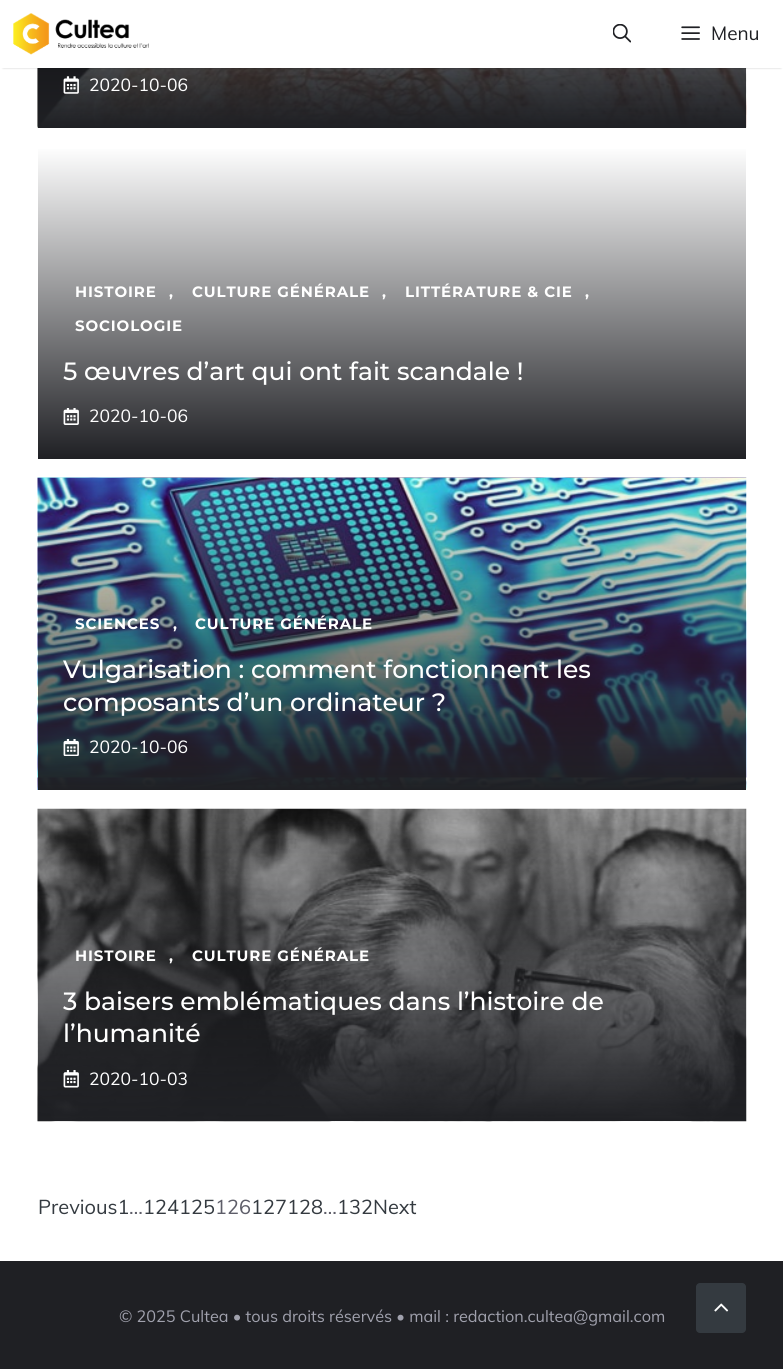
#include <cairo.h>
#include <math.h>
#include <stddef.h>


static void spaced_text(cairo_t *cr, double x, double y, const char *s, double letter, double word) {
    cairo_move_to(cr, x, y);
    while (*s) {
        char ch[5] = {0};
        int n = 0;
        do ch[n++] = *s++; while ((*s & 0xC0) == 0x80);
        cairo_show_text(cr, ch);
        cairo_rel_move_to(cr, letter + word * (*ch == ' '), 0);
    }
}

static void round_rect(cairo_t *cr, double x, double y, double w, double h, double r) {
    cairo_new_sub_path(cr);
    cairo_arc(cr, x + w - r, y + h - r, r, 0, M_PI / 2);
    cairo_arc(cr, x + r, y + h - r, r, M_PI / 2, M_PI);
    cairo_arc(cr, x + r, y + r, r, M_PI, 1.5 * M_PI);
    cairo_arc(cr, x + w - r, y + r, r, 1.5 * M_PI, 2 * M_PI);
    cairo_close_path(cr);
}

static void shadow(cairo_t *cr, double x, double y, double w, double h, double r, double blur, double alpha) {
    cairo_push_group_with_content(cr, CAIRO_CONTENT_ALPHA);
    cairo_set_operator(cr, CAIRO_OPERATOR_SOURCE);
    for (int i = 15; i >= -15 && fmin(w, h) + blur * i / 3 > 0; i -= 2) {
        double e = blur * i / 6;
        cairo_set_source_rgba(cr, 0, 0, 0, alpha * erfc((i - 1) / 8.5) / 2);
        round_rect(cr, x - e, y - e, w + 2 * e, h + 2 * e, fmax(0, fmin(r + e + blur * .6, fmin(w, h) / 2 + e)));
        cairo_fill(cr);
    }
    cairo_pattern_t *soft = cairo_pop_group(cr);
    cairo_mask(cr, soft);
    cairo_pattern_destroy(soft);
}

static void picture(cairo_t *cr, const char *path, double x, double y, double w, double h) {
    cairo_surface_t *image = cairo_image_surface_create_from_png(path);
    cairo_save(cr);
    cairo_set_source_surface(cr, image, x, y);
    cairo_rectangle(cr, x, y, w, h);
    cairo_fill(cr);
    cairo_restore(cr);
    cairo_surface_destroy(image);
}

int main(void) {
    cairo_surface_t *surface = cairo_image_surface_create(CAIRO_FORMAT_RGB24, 783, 1369);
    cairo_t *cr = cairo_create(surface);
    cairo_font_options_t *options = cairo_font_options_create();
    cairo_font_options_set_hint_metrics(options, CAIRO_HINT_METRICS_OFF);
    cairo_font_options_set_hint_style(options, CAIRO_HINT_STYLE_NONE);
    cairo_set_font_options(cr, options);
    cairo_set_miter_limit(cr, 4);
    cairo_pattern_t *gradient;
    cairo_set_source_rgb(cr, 0.122, 0.125, 0.141);
    cairo_paint(cr);
    cairo_set_source_rgb(cr, 1, 1, 1);
    cairo_rectangle(cr, 0, 68, 783, 1193);
    cairo_fill(cr);
    picture(cr, "img4.png", 37, 68, 710, 60);
    gradient = cairo_pattern_create_linear(392, -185, 392, 128);
    cairo_pattern_add_color_stop_rgba(gradient, 0, 0.122, 0.125, 0.141, 0);
    cairo_pattern_add_color_stop_rgba(gradient, 1, 0.122, 0.125, 0.141, 1);
    cairo_set_source(cr, gradient);
    cairo_pattern_destroy(gradient);
    cairo_rectangle(cr, 38, 68, 708, 60);
    cairo_fill(cr);
    cairo_set_source_rgb(cr, 0, 0, 0);
    shadow(cr, 3, 5, 778, 63, 0, 1, 0.2);
    cairo_set_source_rgb(cr, 1, 1, 1);
    cairo_rectangle(cr, 0, 0, 783, 68);
    cairo_fill(cr);
    picture(cr, "img1.png", 13, 13, 136, 42);
    picture(cr, "img2.png", 613, 24, 18, 19);
    picture(cr, "img3.png", 681, 26, 19, 14);
    cairo_select_font_face(cr, "Muli", CAIRO_FONT_SLANT_NORMAL, CAIRO_FONT_WEIGHT_NORMAL);
    cairo_set_font_size(cr, 19);
    cairo_set_source_rgb(cr, 0.122, 0.125, 0.141);
    cairo_move_to(cr, 711, 40);
    cairo_show_text(cr, "Menu");
    picture(cr, "img5.png", 63, 76, 16, 18);
    cairo_set_font_size(cr, 17.5);
    cairo_set_source_rgb(cr, 1, 1, 1);
    cairo_move_to(cr, 89, 91);
    cairo_show_text(cr, "2020-10-06");
    gradient = cairo_pattern_create_linear(392, 146, 392, 459);
    cairo_pattern_add_color_stop_rgba(gradient, 0, 1, 1, 1, 1);
    cairo_pattern_add_color_stop_rgba(gradient, 1, 0.122, 0.125, 0.141, 1);
    cairo_set_source(cr, gradient);
    cairo_pattern_destroy(gradient);
    cairo_rectangle(cr, 38, 149, 708, 310);
    cairo_fill(cr);
    cairo_select_font_face(cr, "Montserrat", CAIRO_FONT_SLANT_NORMAL, CAIRO_FONT_WEIGHT_BOLD);
    cairo_set_font_size(cr, 15);
    cairo_set_source_rgb(cr, 1, 1, 1);
    spaced_text(cr, 75, 297, "HISTOIRE", 0.9, 0);
    spaced_text(cr, 169, 297, ",", 0.9, 0);
    spaced_text(cr, 192, 297, "CULTURE GÉNÉRALE", 0.9, 0);
    spaced_text(cr, 382, 297, ",", 0.9, 0);
    spaced_text(cr, 405, 297, "LITTÉRATURE & CIE", 0.9, 0);
    spaced_text(cr, 585, 297, ",", 0.9, 0);
    spaced_text(cr, 75, 331, "SOCIOLOGIE", 0.9, 0);
    cairo_select_font_face(cr, "Montserrat Medium", CAIRO_FONT_SLANT_NORMAL, CAIRO_FONT_WEIGHT_NORMAL);
    cairo_set_font_size(cr, 25);
    cairo_move_to(cr, 63, 380);
    cairo_show_text(cr, "5 œuvres d’art qui ont fait scandale !");
    picture(cr, "img6.png", 63, 408, 16, 17);
    cairo_select_font_face(cr, "Muli", CAIRO_FONT_SLANT_NORMAL, CAIRO_FONT_WEIGHT_NORMAL);
    cairo_set_font_size(cr, 17.5);
    cairo_move_to(cr, 89, 422);
    cairo_show_text(cr, "2020-10-06");
    picture(cr, "img7.png", 37, 477, 710, 313);
    cairo_select_font_face(cr, "Montserrat", CAIRO_FONT_SLANT_NORMAL, CAIRO_FONT_WEIGHT_BOLD);
    cairo_set_font_size(cr, 15);
    spaced_text(cr, 75, 629, "SCIENCES", 0.9, 0);
    spaced_text(cr, 173, 629, ",", 0.9, 0);
    spaced_text(cr, 195, 629, "CULTURE GÉNÉRALE", 0.9, 0);
    cairo_select_font_face(cr, "Montserrat Medium", CAIRO_FONT_SLANT_NORMAL, CAIRO_FONT_WEIGHT_NORMAL);
    cairo_set_font_size(cr, 25);
    cairo_move_to(cr, 63, 678);
    cairo_show_text(cr, "Vulgarisation : comment fonctionnent les");
    cairo_move_to(cr, 63, 711);
    cairo_show_text(cr, "composants d’un ordinateur ?");
    picture(cr, "img8.png", 63, 739, 16, 17);
    cairo_select_font_face(cr, "Muli", CAIRO_FONT_SLANT_NORMAL, CAIRO_FONT_WEIGHT_NORMAL);
    cairo_set_font_size(cr, 17.5);
    cairo_move_to(cr, 89, 753);
    cairo_show_text(cr, "2020-10-06");
    picture(cr, "img9.png", 37, 808, 710, 314);
    cairo_select_font_face(cr, "Montserrat", CAIRO_FONT_SLANT_NORMAL, CAIRO_FONT_WEIGHT_BOLD);
    cairo_set_font_size(cr, 15);
    spaced_text(cr, 75, 961, "HISTOIRE", 0.9, 0);
    spaced_text(cr, 169, 961, ",", 0.9, 0);
    spaced_text(cr, 192, 961, "CULTURE GÉNÉRALE", 0.9, 0);
    cairo_select_font_face(cr, "Montserrat Medium", CAIRO_FONT_SLANT_NORMAL, CAIRO_FONT_WEIGHT_NORMAL);
    cairo_set_font_size(cr, 25);
    cairo_move_to(cr, 63, 1010);
    cairo_show_text(cr, "3 baisers emblématiques dans l’histoire de");
    cairo_move_to(cr, 63, 1042);
    cairo_show_text(cr, "l’humanité");
    picture(cr, "img10.png", 63, 1070, 16, 18);
    cairo_select_font_face(cr, "Muli", CAIRO_FONT_SLANT_NORMAL, CAIRO_FONT_WEIGHT_NORMAL);
    cairo_set_font_size(cr, 17.5);
    cairo_move_to(cr, 89, 1085);
    cairo_show_text(cr, "2020-10-03");
    cairo_set_font_size(cr, 20);
    cairo_set_source_rgb(cr, 0.204, 0.227, 0.251);
    cairo_move_to(cr, 38, 1214);
    cairo_show_text(cr, "Previous1");
    cairo_set_source_rgb(cr, 0.369, 0.369, 0.412);
    cairo_move_to(cr, 129, 1214);
    cairo_show_text(cr, "…");
    cairo_set_source_rgb(cr, 0.204, 0.227, 0.251);
    cairo_move_to(cr, 143, 1214);
    cairo_show_text(cr, "124125");
    cairo_set_source_rgb(cr, 0.369, 0.369, 0.412);
    cairo_move_to(cr, 215, 1214);
    cairo_show_text(cr, "126");
    cairo_set_source_rgb(cr, 0.204, 0.227, 0.251);
    cairo_move_to(cr, 251, 1214);
    cairo_show_text(cr, "127128");
    cairo_set_source_rgb(cr, 0.369, 0.369, 0.412);
    cairo_move_to(cr, 323, 1214);
    cairo_show_text(cr, "…");
    cairo_set_source_rgb(cr, 0.204, 0.227, 0.251);
    cairo_move_to(cr, 337, 1214);
    cairo_show_text(cr, "132Next");
    cairo_set_font_size(cr, 16.25);
    cairo_set_source_rgb(cr, 0.627, 0.631, 0.678);
    cairo_move_to(cr, 119, 1322);
    cairo_show_text(cr, "© 2025 Cultea • tous droits réservés • mail : redaction.cultea@gmail.com");
    cairo_set_source_rgb(cr, 0.204, 0.227, 0.251);
    round_rect(cr, 696, 1283, 50, 50, 4);
    cairo_fill(cr);
    picture(cr, "img11.png", 714, 1303, 15, 9);
    cairo_surface_write_to_png(surface, "page.png");
    cairo_font_options_destroy(options);
    cairo_destroy(cr);
    cairo_surface_destroy(surface);
    return 0;
}
